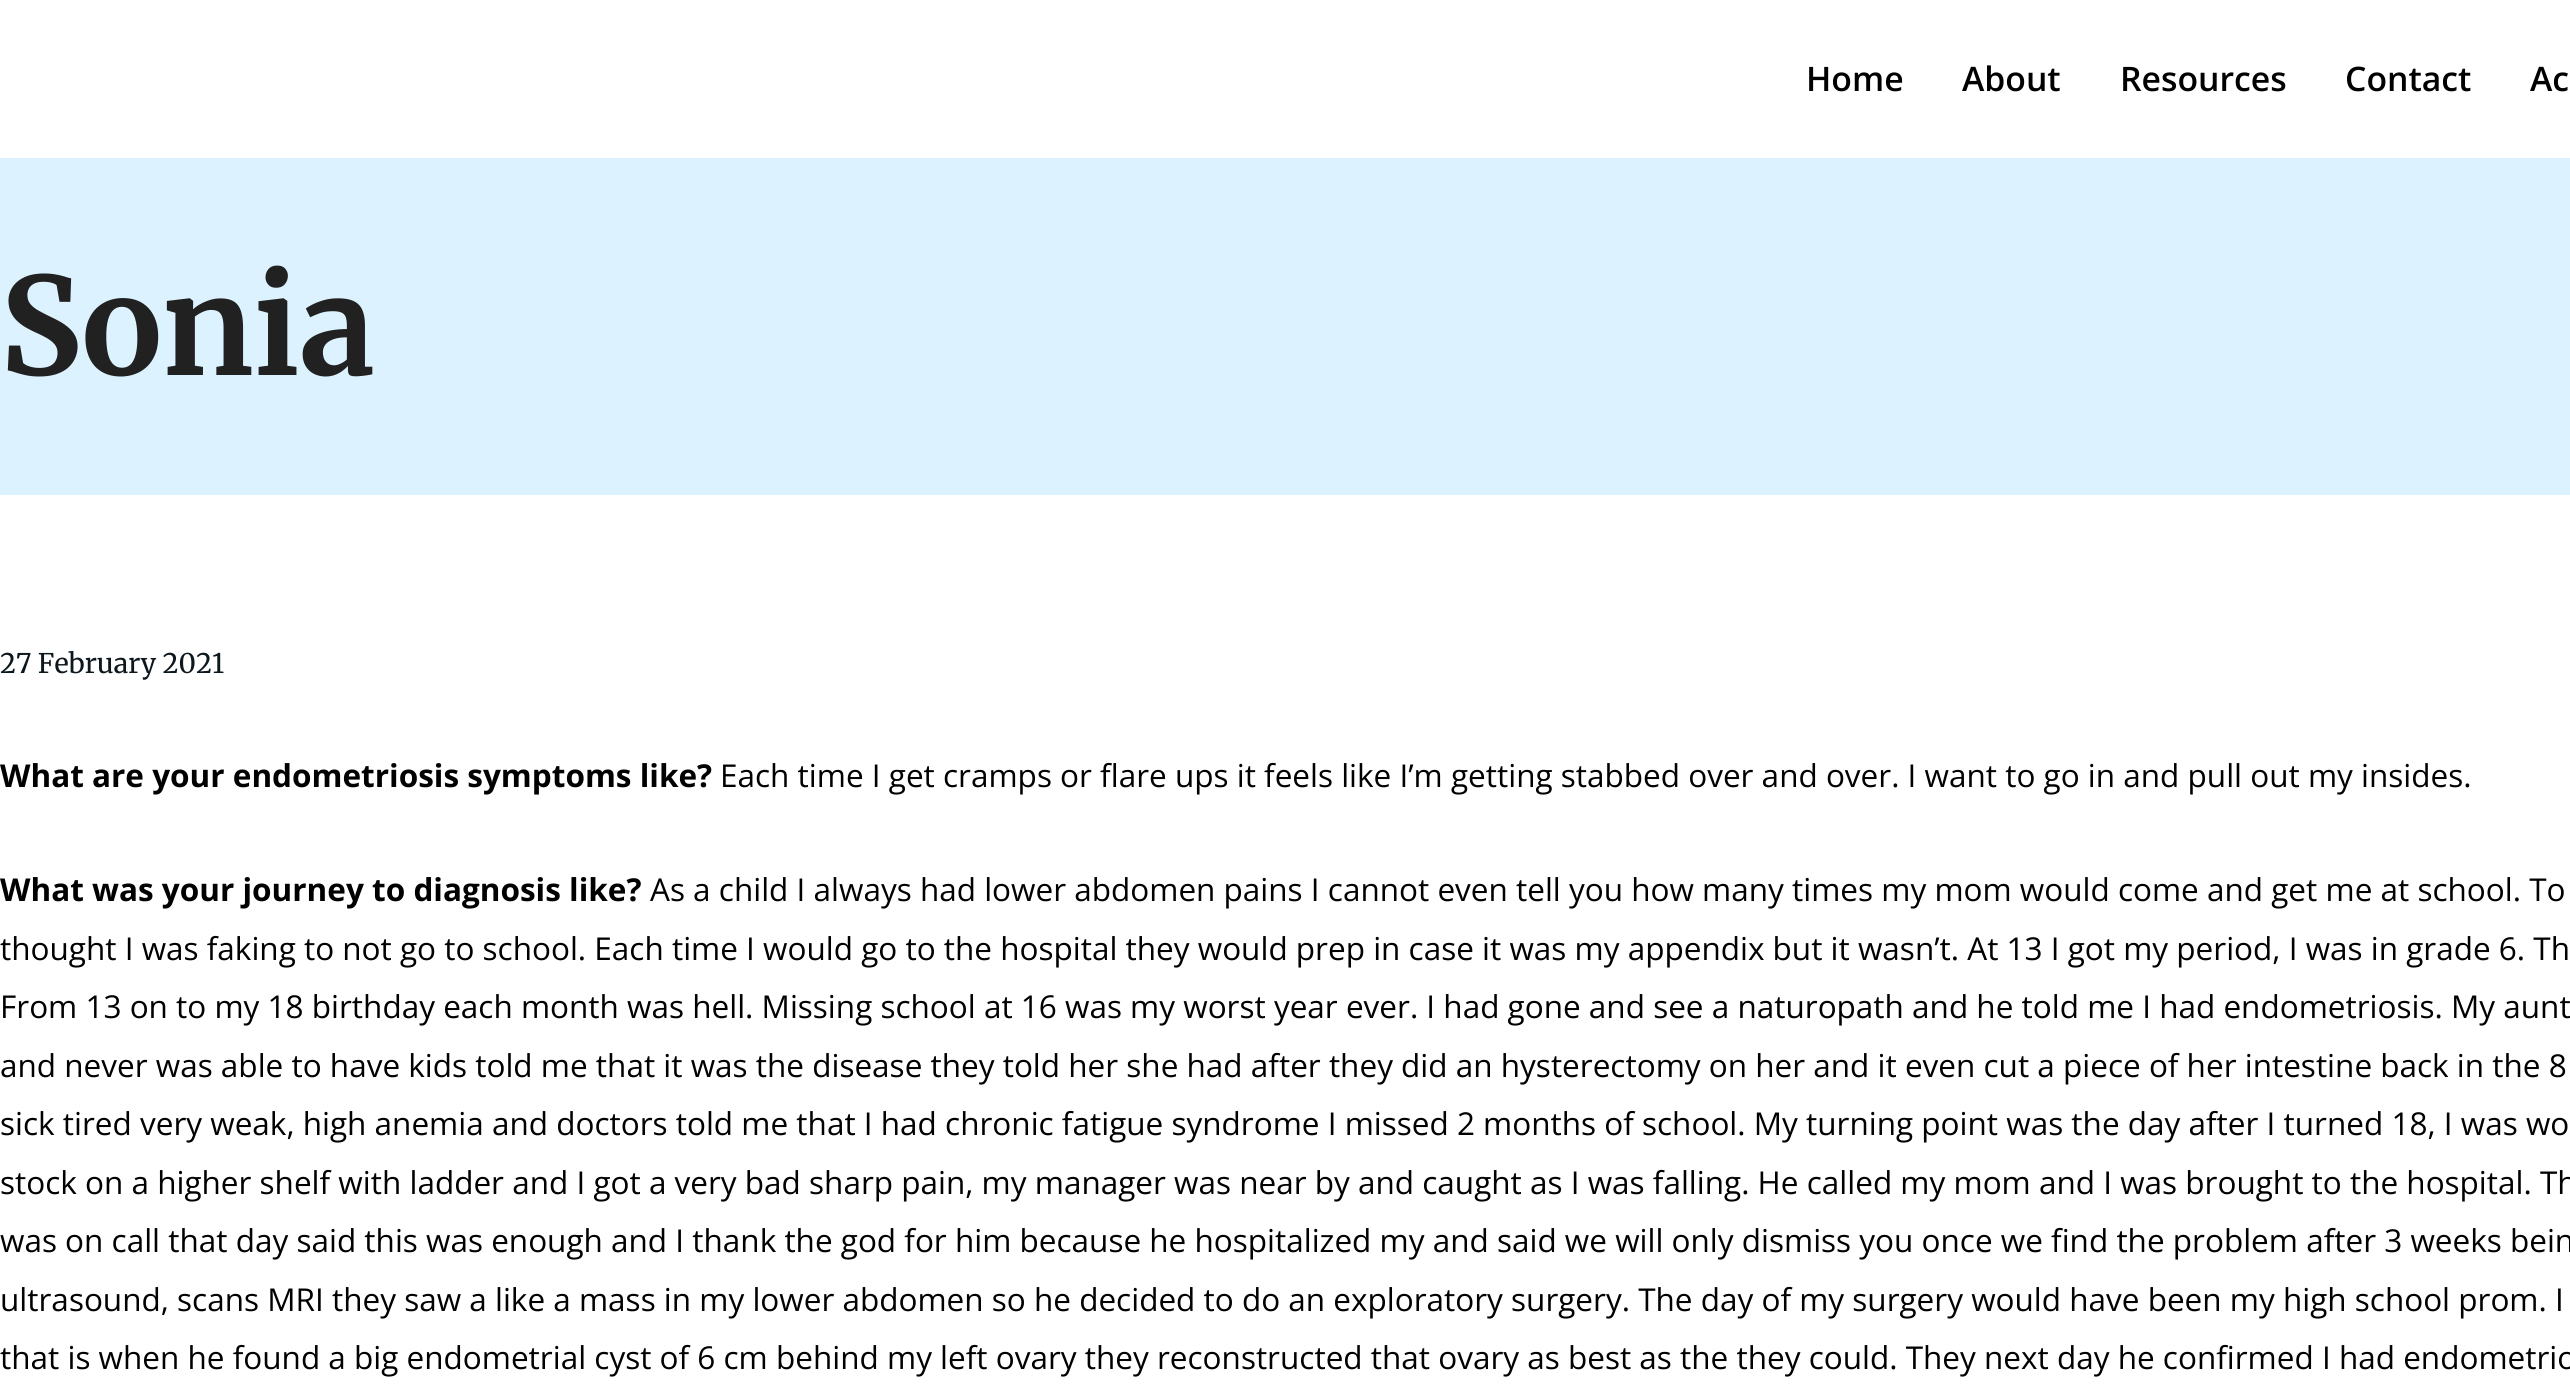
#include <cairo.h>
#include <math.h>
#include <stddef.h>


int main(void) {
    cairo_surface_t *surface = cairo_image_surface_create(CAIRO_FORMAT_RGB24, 2570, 1390);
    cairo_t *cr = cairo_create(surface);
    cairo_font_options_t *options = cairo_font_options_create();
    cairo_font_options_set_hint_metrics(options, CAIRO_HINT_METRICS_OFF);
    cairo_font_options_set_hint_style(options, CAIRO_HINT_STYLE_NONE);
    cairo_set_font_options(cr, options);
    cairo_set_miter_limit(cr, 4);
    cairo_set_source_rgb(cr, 1, 1, 1);
    cairo_paint(cr);
    cairo_select_font_face(cr, "Open Sans SemiBold", CAIRO_FONT_SLANT_NORMAL, CAIRO_FONT_WEIGHT_NORMAL);
    cairo_set_font_size(cr, 33.75);
    cairo_set_source_rgb(cr, 0, 0, 0);
    cairo_move_to(cr, 1806, 91);
    cairo_show_text(cr, "Home");
    cairo_move_to(cr, 1962, 91);
    cairo_show_text(cr, "About");
    cairo_move_to(cr, 2120, 91);
    cairo_show_text(cr, "Resources");
    cairo_move_to(cr, 2345, 91);
    cairo_show_text(cr, "Contact");
    cairo_move_to(cr, 2530, 91);
    cairo_show_text(cr, "Ac");
    cairo_set_source_rgb(cr, 0.863, 0.953, 1);
    cairo_rectangle(cr, 0, 158, 2570, 337);
    cairo_fill(cr);
    cairo_select_font_face(cr, "Merriweather", CAIRO_FONT_SLANT_NORMAL, CAIRO_FONT_WEIGHT_BOLD);
    cairo_set_font_size(cr, 135);
    cairo_set_source_rgb(cr, 0.129, 0.129, 0.129);
    cairo_move_to(cr, 0, 375);
    cairo_show_text(cr, "Sonia");
    cairo_select_font_face(cr, "Merriweather", CAIRO_FONT_SLANT_NORMAL, CAIRO_FONT_WEIGHT_NORMAL);
    cairo_set_font_size(cr, 27);
    cairo_set_source_rgb(cr, 0.051, 0.09, 0.118);
    cairo_move_to(cr, 0, 673);
    cairo_show_text(cr, "27 February 2021");
    cairo_select_font_face(cr, "Open Sans", CAIRO_FONT_SLANT_NORMAL, CAIRO_FONT_WEIGHT_BOLD);
    cairo_set_font_size(cr, 31.5);
    cairo_set_source_rgb(cr, 0, 0, 0);
    cairo_move_to(cr, 0, 787);
    cairo_show_text(cr, "What are your endometriosis symptoms like?");
    cairo_select_font_face(cr, "Open Sans", CAIRO_FONT_SLANT_NORMAL, CAIRO_FONT_WEIGHT_NORMAL);
    cairo_move_to(cr, 720, 787);
    cairo_show_text(cr, "Each time I get cramps or flare ups it feels like I’m getting stabbed over and over. I want to go in and pull out my insides.");
    cairo_select_font_face(cr, "Open Sans", CAIRO_FONT_SLANT_NORMAL, CAIRO_FONT_WEIGHT_BOLD);
    cairo_move_to(cr, 0, 901);
    cairo_show_text(cr, "What was your journey to diagnosis like?");
    cairo_select_font_face(cr, "Open Sans", CAIRO_FONT_SLANT_NORMAL, CAIRO_FONT_WEIGHT_NORMAL);
    cairo_move_to(cr, 650, 901);
    cairo_show_text(cr, "As a child I always had lower abdomen pains I cannot even tell you how many times my mom would come and get me at school. To");
    cairo_move_to(cr, 0, 960);
    cairo_show_text(cr, "thought I was faking to not go to school. Each time I would go to the hospital they would prep in case it was my appendix but it wasn’t. At 13 I got my period, I was in grade 6. Th");
    cairo_move_to(cr, 0, 1018);
    cairo_show_text(cr, "From 13 on to my 18 birthday each month was hell. Missing school at 16 was my worst year ever. I had gone and see a naturopath and he told me I had endometriosis. My aunt");
    cairo_move_to(cr, 0, 1077);
    cairo_show_text(cr, "and never was able to have kids told me that it was the disease they told her she had after they did an hysterectomy on her and it even cut a piece of her intestine back in the 8");
    cairo_move_to(cr, 0, 1135);
    cairo_show_text(cr, "sick tired very weak, high anemia and doctors told me that I had chronic fatigue syndrome I missed 2 months of school. My turning point was the day after I turned 18, I was wo");
    cairo_move_to(cr, 0, 1194);
    cairo_show_text(cr, "stock on a higher shelf with ladder and I got a very bad sharp pain, my manager was near by and caught as I was falling. He called my mom and I was brought to the hospital. Th");
    cairo_move_to(cr, 0, 1252);
    cairo_show_text(cr, "was on call that day said this was enough and I thank the god for him because he hospitalized my and said we will only dismiss you once we find the problem after 3 weeks bein");
    cairo_move_to(cr, 0, 1311);
    cairo_show_text(cr, "ultrasound, scans MRI they saw a like a mass in my lower abdomen so he decided to do an exploratory surgery. The day of my surgery would have been my high school prom. I");
    cairo_move_to(cr, 0, 1369);
    cairo_show_text(cr, "that is when he found a big endometrial cyst of 6 cm behind my left ovary they reconstructed that ovary as best as the they could. They next day he confirmed I had endometrio");
    cairo_surface_write_to_png(surface, "page.png");
    cairo_font_options_destroy(options);
    cairo_destroy(cr);
    cairo_surface_destroy(surface);
    return 0;
}
